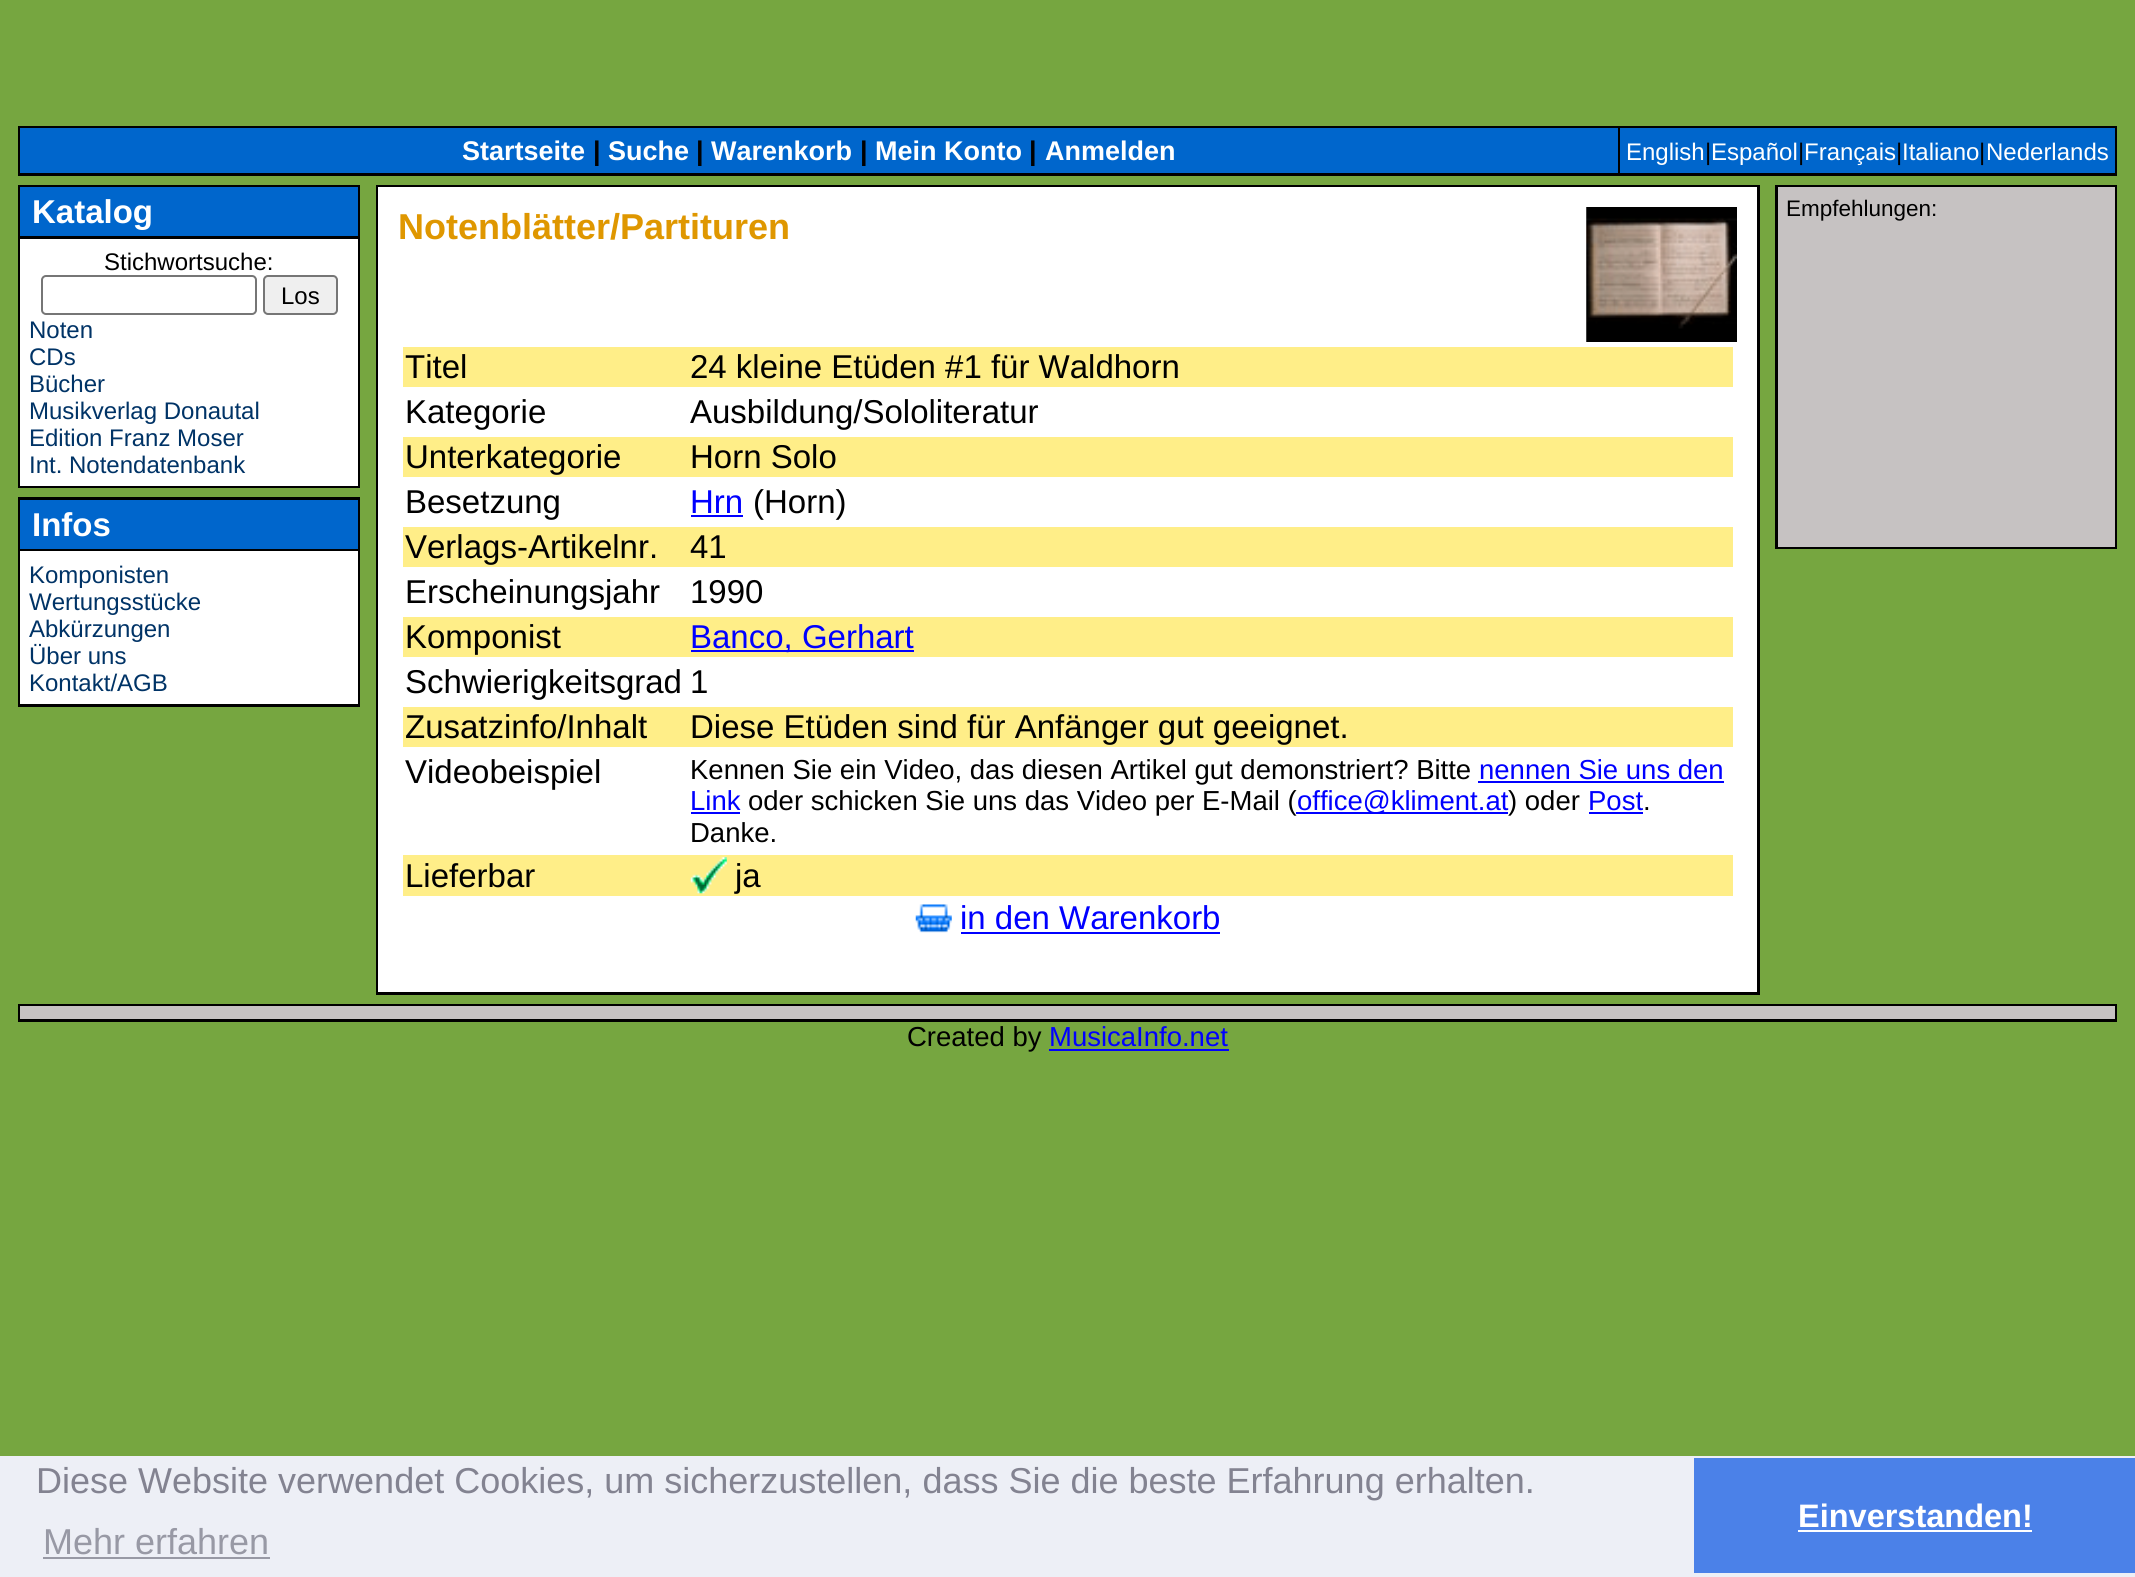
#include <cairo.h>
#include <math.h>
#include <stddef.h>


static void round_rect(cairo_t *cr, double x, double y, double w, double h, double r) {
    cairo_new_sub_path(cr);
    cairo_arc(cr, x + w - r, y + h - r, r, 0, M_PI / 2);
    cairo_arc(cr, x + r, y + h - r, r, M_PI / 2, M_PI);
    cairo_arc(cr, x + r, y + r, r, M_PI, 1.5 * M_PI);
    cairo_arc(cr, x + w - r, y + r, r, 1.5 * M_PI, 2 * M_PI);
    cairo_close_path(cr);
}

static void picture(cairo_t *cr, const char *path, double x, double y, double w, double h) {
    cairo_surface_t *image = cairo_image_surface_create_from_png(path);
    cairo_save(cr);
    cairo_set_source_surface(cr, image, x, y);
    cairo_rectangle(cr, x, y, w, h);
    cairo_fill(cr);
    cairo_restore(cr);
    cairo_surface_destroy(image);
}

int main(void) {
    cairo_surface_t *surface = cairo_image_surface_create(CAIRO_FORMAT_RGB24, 2135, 1577);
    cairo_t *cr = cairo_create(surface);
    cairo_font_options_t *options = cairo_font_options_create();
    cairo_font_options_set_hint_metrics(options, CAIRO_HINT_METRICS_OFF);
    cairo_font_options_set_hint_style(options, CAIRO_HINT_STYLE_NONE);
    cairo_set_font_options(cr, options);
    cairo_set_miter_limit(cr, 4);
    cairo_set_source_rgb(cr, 0.463, 0.651, 0.251);
    cairo_paint(cr);
    cairo_set_source_rgb(cr, 0, 0, 0);
    cairo_rectangle(cr, 18, 126, 2099, 50);
    cairo_fill(cr);
    cairo_set_source_rgb(cr, 0, 0.4, 0.8);
    cairo_rectangle(cr, 20, 128, 1598, 45);
    cairo_fill(cr);
    cairo_select_font_face(cr, "Liberation Sans", CAIRO_FONT_SLANT_NORMAL, CAIRO_FONT_WEIGHT_BOLD);
    cairo_set_font_size(cr, 27);
    cairo_set_source_rgb(cr, 1, 1, 1);
    cairo_move_to(cr, 462, 160);
    cairo_show_text(cr, "Startseite");
    cairo_set_source_rgb(cr, 0, 0, 0);
    cairo_move_to(cr, 593, 160);
    cairo_show_text(cr, "|");
    cairo_set_source_rgb(cr, 1, 1, 1);
    cairo_move_to(cr, 608, 160);
    cairo_show_text(cr, "Suche");
    cairo_set_source_rgb(cr, 0, 0, 0);
    cairo_move_to(cr, 696, 160);
    cairo_show_text(cr, "|");
    cairo_set_source_rgb(cr, 1, 1, 1);
    cairo_move_to(cr, 711, 160);
    cairo_show_text(cr, "Warenkorb");
    cairo_set_source_rgb(cr, 0, 0, 0);
    cairo_move_to(cr, 860, 160);
    cairo_show_text(cr, "|");
    cairo_set_source_rgb(cr, 1, 1, 1);
    cairo_move_to(cr, 875, 160);
    cairo_show_text(cr, "Mein Konto");
    cairo_set_source_rgb(cr, 0, 0, 0);
    cairo_move_to(cr, 1029, 160);
    cairo_show_text(cr, "|");
    cairo_set_source_rgb(cr, 1, 1, 1);
    cairo_move_to(cr, 1045, 160);
    cairo_show_text(cr, "Anmelden");
    cairo_set_source_rgb(cr, 0, 0.4, 0.8);
    cairo_rectangle(cr, 1620, 128, 495, 45);
    cairo_fill(cr);
    cairo_select_font_face(cr, "Liberation Sans", CAIRO_FONT_SLANT_NORMAL, CAIRO_FONT_WEIGHT_NORMAL);
    cairo_set_font_size(cr, 24);
    cairo_set_source_rgb(cr, 1, 1, 1);
    cairo_move_to(cr, 1626, 160);
    cairo_show_text(cr, "English");
    cairo_set_source_rgb(cr, 0, 0, 0);
    cairo_move_to(cr, 1705, 160);
    cairo_show_text(cr, "|");
    cairo_set_source_rgb(cr, 1, 1, 1);
    cairo_move_to(cr, 1711, 160);
    cairo_show_text(cr, "Español");
    cairo_set_source_rgb(cr, 0, 0, 0);
    cairo_move_to(cr, 1798, 160);
    cairo_show_text(cr, "|");
    cairo_set_source_rgb(cr, 1, 1, 1);
    cairo_move_to(cr, 1804, 160);
    cairo_show_text(cr, "Français");
    cairo_set_source_rgb(cr, 0, 0, 0);
    cairo_move_to(cr, 1896, 160);
    cairo_show_text(cr, "|");
    cairo_set_source_rgb(cr, 1, 1, 1);
    cairo_move_to(cr, 1902, 160);
    cairo_show_text(cr, "Italiano");
    cairo_set_source_rgb(cr, 0, 0, 0);
    cairo_move_to(cr, 1979, 160);
    cairo_show_text(cr, "|");
    cairo_set_source_rgb(cr, 1, 1, 1);
    cairo_move_to(cr, 1986, 160);
    cairo_show_text(cr, "Nederlands");
    cairo_set_source_rgb(cr, 0, 0, 0);
    cairo_rectangle(cr, 18, 185, 342, 303);
    cairo_fill(cr);
    cairo_set_source_rgb(cr, 0, 0.4, 0.8);
    cairo_rectangle(cr, 20, 187, 338, 49);
    cairo_fill(cr);
    cairo_select_font_face(cr, "Liberation Sans", CAIRO_FONT_SLANT_NORMAL, CAIRO_FONT_WEIGHT_BOLD);
    cairo_set_font_size(cr, 33);
    cairo_set_source_rgb(cr, 1, 1, 1);
    cairo_move_to(cr, 32, 223);
    cairo_show_text(cr, "Katalog");
    cairo_rectangle(cr, 20, 239, 338, 247);
    cairo_fill(cr);
    cairo_select_font_face(cr, "Liberation Sans", CAIRO_FONT_SLANT_NORMAL, CAIRO_FONT_WEIGHT_NORMAL);
    cairo_set_font_size(cr, 24);
    cairo_set_source_rgb(cr, 0, 0, 0);
    cairo_move_to(cr, 104, 270);
    cairo_show_text(cr, "Stichwortsuche:");
    round_rect(cr, 42, 276, 214, 38, 4);
    cairo_set_source_rgb(cr, 0.463, 0.463, 0.463);
    cairo_stroke(cr);
    cairo_set_source_rgb(cr, 0.937, 0.937, 0.937);
    round_rect(cr, 264, 276, 73, 38, 4);
    cairo_fill_preserve(cr);
    cairo_set_source_rgb(cr, 0.463, 0.463, 0.463);
    cairo_stroke(cr);
    cairo_set_source_rgb(cr, 0, 0, 0);
    cairo_move_to(cr, 281, 304);
    cairo_show_text(cr, "Los");
    cairo_set_source_rgb(cr, 0, 0.2, 0.4);
    cairo_move_to(cr, 29, 338);
    cairo_show_text(cr, "Noten");
    cairo_move_to(cr, 29, 365);
    cairo_show_text(cr, "CDs");
    cairo_move_to(cr, 29, 392);
    cairo_show_text(cr, "Bücher");
    cairo_move_to(cr, 29, 419);
    cairo_show_text(cr, "Musikverlag Donautal");
    cairo_move_to(cr, 29, 446);
    cairo_show_text(cr, "Edition Franz Moser");
    cairo_move_to(cr, 29, 473);
    cairo_show_text(cr, "Int. Notendatenbank");
    cairo_set_source_rgb(cr, 0, 0, 0);
    cairo_rectangle(cr, 18, 497, 342, 210);
    cairo_fill(cr);
    cairo_set_source_rgb(cr, 0, 0.4, 0.8);
    cairo_rectangle(cr, 20, 500, 338, 49);
    cairo_fill(cr);
    cairo_select_font_face(cr, "Liberation Sans", CAIRO_FONT_SLANT_NORMAL, CAIRO_FONT_WEIGHT_BOLD);
    cairo_set_font_size(cr, 33);
    cairo_set_source_rgb(cr, 1, 1, 1);
    cairo_move_to(cr, 32, 536);
    cairo_show_text(cr, "Infos");
    cairo_rectangle(cr, 20, 551, 338, 153);
    cairo_fill(cr);
    cairo_select_font_face(cr, "Liberation Sans", CAIRO_FONT_SLANT_NORMAL, CAIRO_FONT_WEIGHT_NORMAL);
    cairo_set_font_size(cr, 24);
    cairo_set_source_rgb(cr, 0, 0.2, 0.4);
    cairo_move_to(cr, 29, 583);
    cairo_show_text(cr, "Komponisten");
    cairo_move_to(cr, 29, 610);
    cairo_show_text(cr, "Wertungsstücke");
    cairo_move_to(cr, 29, 637);
    cairo_show_text(cr, "Abkürzungen");
    cairo_move_to(cr, 29, 664);
    cairo_show_text(cr, "Über uns");
    cairo_move_to(cr, 29, 691);
    cairo_show_text(cr, "Kontakt/AGB");
    cairo_set_source_rgb(cr, 0, 0, 0);
    cairo_rectangle(cr, 376, 185, 1384, 810);
    cairo_fill(cr);
    cairo_set_source_rgb(cr, 1, 1, 1);
    cairo_rectangle(cr, 378, 187, 1379, 805);
    cairo_fill(cr);
    cairo_select_font_face(cr, "Liberation Sans", CAIRO_FONT_SLANT_NORMAL, CAIRO_FONT_WEIGHT_BOLD);
    cairo_set_font_size(cr, 36);
    cairo_set_source_rgb(cr, 0.875, 0.592, 0);
    cairo_move_to(cr, 398, 239);
    cairo_show_text(cr, "Notenblätter/Partituren");
    picture(cr, "img1.png", 1586, 207, 151, 135);
    cairo_set_source_rgb(cr, 1, 0.933, 0.533);
    cairo_rectangle(cr, 403, 347, 1330, 40);
    cairo_fill(cr);
    cairo_select_font_face(cr, "Liberation Sans", CAIRO_FONT_SLANT_NORMAL, CAIRO_FONT_WEIGHT_NORMAL);
    cairo_set_font_size(cr, 33);
    cairo_set_source_rgb(cr, 0, 0, 0);
    cairo_move_to(cr, 405, 378);
    cairo_show_text(cr, "Titel");
    cairo_move_to(cr, 690, 378);
    cairo_show_text(cr, "24 kleine Etüden #1 für Waldhorn");
    cairo_move_to(cr, 405, 423);
    cairo_show_text(cr, "Kategorie");
    cairo_move_to(cr, 690, 423);
    cairo_show_text(cr, "Ausbildung/Sololiteratur");
    cairo_set_source_rgb(cr, 1, 0.933, 0.533);
    cairo_rectangle(cr, 403, 437, 1330, 40);
    cairo_fill(cr);
    cairo_set_source_rgb(cr, 0, 0, 0);
    cairo_move_to(cr, 405, 468);
    cairo_show_text(cr, "Unterkategorie");
    cairo_move_to(cr, 690, 468);
    cairo_show_text(cr, "Horn Solo");
    cairo_move_to(cr, 405, 513);
    cairo_show_text(cr, "Besetzung");
    cairo_set_source_rgb(cr, 0, 0, 1);
    cairo_move_to(cr, 690, 513);
    cairo_show_text(cr, "Hrn");
    cairo_rectangle(cr, 691, 515, 52, 2);
    cairo_fill(cr);
    cairo_set_source_rgb(cr, 0, 0, 0);
    cairo_move_to(cr, 753, 513);
    cairo_show_text(cr, "(Horn)");
    cairo_set_source_rgb(cr, 1, 0.933, 0.533);
    cairo_rectangle(cr, 403, 527, 1330, 40);
    cairo_fill(cr);
    cairo_set_source_rgb(cr, 0, 0, 0);
    cairo_move_to(cr, 405, 558);
    cairo_show_text(cr, "Verlags-Artikelnr.");
    cairo_move_to(cr, 690, 558);
    cairo_show_text(cr, "41");
    cairo_move_to(cr, 405, 603);
    cairo_show_text(cr, "Erscheinungsjahr");
    cairo_move_to(cr, 690, 603);
    cairo_show_text(cr, "1990");
    cairo_set_source_rgb(cr, 1, 0.933, 0.533);
    cairo_rectangle(cr, 403, 617, 1330, 40);
    cairo_fill(cr);
    cairo_set_source_rgb(cr, 0, 0, 0);
    cairo_move_to(cr, 405, 648);
    cairo_show_text(cr, "Komponist");
    cairo_set_source_rgb(cr, 0, 0, 1);
    cairo_rectangle(cr, 691, 650, 223, 2);
    cairo_fill(cr);
    cairo_move_to(cr, 690, 648);
    cairo_show_text(cr, "Banco, Gerhart");
    cairo_set_source_rgb(cr, 0, 0, 0);
    cairo_move_to(cr, 405, 693);
    cairo_show_text(cr, "Schwierigkeitsgrad");
    cairo_move_to(cr, 690, 693);
    cairo_show_text(cr, "1");
    cairo_set_source_rgb(cr, 1, 0.933, 0.533);
    cairo_rectangle(cr, 403, 707, 1330, 40);
    cairo_fill(cr);
    cairo_set_source_rgb(cr, 0, 0, 0);
    cairo_move_to(cr, 405, 738);
    cairo_show_text(cr, "Zusatzinfo/Inhalt");
    cairo_move_to(cr, 690, 738);
    cairo_show_text(cr, "Diese Etüden sind für Anfänger gut geeignet.");
    cairo_move_to(cr, 405, 783);
    cairo_show_text(cr, "Videobeispiel");
    cairo_set_font_size(cr, 27.5);
    cairo_move_to(cr, 690, 779);
    cairo_show_text(cr, "Kennen Sie ein Video, das diesen Artikel gut demonstriert? Bitte");
    cairo_set_source_rgb(cr, 0, 0, 1);
    cairo_move_to(cr, 1479, 779);
    cairo_show_text(cr, "nennen Sie uns den");
    cairo_rectangle(cr, 1478, 781, 246, 2);
    cairo_fill(cr);
    cairo_move_to(cr, 690, 810);
    cairo_show_text(cr, "Link");
    cairo_rectangle(cr, 691, 812, 49, 2);
    cairo_fill(cr);
    cairo_set_source_rgb(cr, 0, 0, 0);
    cairo_move_to(cr, 748, 810);
    cairo_show_text(cr, "oder schicken Sie uns das Video per E-Mail (");
    cairo_set_source_rgb(cr, 0, 0, 1);
    cairo_rectangle(cr, 1296, 812, 212, 2);
    cairo_fill(cr);
    cairo_move_to(cr, 1297, 810);
    cairo_show_text(cr, "office@kliment.at");
    cairo_set_source_rgb(cr, 0, 0, 0);
    cairo_move_to(cr, 1508, 810);
    cairo_show_text(cr, ") oder");
    cairo_set_source_rgb(cr, 0, 0, 1);
    cairo_move_to(cr, 1588, 810);
    cairo_show_text(cr, "Post");
    cairo_set_source_rgb(cr, 0, 0, 0);
    cairo_move_to(cr, 1643, 810);
    cairo_show_text(cr, ".");
    cairo_set_source_rgb(cr, 0, 0, 1);
    cairo_rectangle(cr, 1589, 812, 54, 2);
    cairo_fill(cr);
    cairo_set_source_rgb(cr, 0, 0, 0);
    cairo_move_to(cr, 690, 842);
    cairo_show_text(cr, "Danke.");
    cairo_set_source_rgb(cr, 1, 0.933, 0.533);
    cairo_rectangle(cr, 403, 855, 1330, 41);
    cairo_fill(cr);
    cairo_set_font_size(cr, 33);
    cairo_set_source_rgb(cr, 0, 0, 0);
    cairo_move_to(cr, 405, 887);
    cairo_show_text(cr, "Lieferbar");
    picture(cr, "img2.png", 690, 857, 37, 37);
    cairo_move_to(cr, 735, 887);
    cairo_show_text(cr, "ja");
    picture(cr, "img3.png", 915, 904, 37, 29);
    cairo_set_source_rgb(cr, 0, 0, 1);
    cairo_move_to(cr, 960, 929);
    cairo_show_text(cr, "in den Warenkorb");
    cairo_rectangle(cr, 961, 932, 259, 2);
    cairo_fill(cr);
    cairo_set_source_rgb(cr, 0, 0, 0);
    cairo_rectangle(cr, 1775, 185, 342, 364);
    cairo_fill(cr);
    cairo_set_source_rgb(cr, 0.776, 0.761, 0.761);
    cairo_rectangle(cr, 1778, 187, 337, 360);
    cairo_fill(cr);
    cairo_set_font_size(cr, 22.5);
    cairo_set_source_rgb(cr, 0, 0, 0);
    cairo_move_to(cr, 1786, 216);
    cairo_show_text(cr, "Empfehlungen:");
    cairo_rectangle(cr, 18, 1004, 2099, 18);
    cairo_fill(cr);
    cairo_set_source_rgb(cr, 0.776, 0.761, 0.761);
    cairo_rectangle(cr, 20, 1006, 2095, 13);
    cairo_fill(cr);
    cairo_set_font_size(cr, 27.5);
    cairo_set_source_rgb(cr, 0, 0, 0);
    cairo_move_to(cr, 907, 1046);
    cairo_show_text(cr, "Created by");
    cairo_set_source_rgb(cr, 0, 0, 1);
    cairo_move_to(cr, 1049, 1046);
    cairo_show_text(cr, "MusicaInfo.net");
    cairo_rectangle(cr, 1049, 1049, 180, 2);
    cairo_fill(cr);
    cairo_set_source_rgb(cr, 0.929, 0.937, 0.961);
    cairo_rectangle(cr, 0, 1456, 2135, 121);
    cairo_fill(cr);
    cairo_set_font_size(cr, 36);
    cairo_set_source_rgb(cr, 0.514, 0.514, 0.569);
    cairo_move_to(cr, 36, 1493);
    cairo_show_text(cr, "Diese Website verwendet Cookies, um sicherzustellen, dass Sie die beste Erfahrung erhalten.");
    cairo_set_source_rgb(cr, 0.596, 0.6, 0.647);
    cairo_move_to(cr, 43, 1554);
    cairo_show_text(cr, "Mehr erfahren");
    cairo_rectangle(cr, 43, 1557, 227, 2);
    cairo_fill(cr);
    cairo_set_source_rgb(cr, 0.294, 0.506, 0.91);
    cairo_rectangle(cr, 1694, 1458, 441, 115);
    cairo_fill(cr);
    cairo_select_font_face(cr, "Liberation Sans", CAIRO_FONT_SLANT_NORMAL, CAIRO_FONT_WEIGHT_BOLD);
    cairo_set_font_size(cr, 32.5);
    cairo_set_source_rgb(cr, 1, 1, 1);
    cairo_move_to(cr, 1798, 1527);
    cairo_show_text(cr, "Einverstanden!");
    cairo_rectangle(cr, 1798, 1530, 234, 2);
    cairo_fill(cr);
    cairo_surface_write_to_png(surface, "page.png");
    cairo_font_options_destroy(options);
    cairo_destroy(cr);
    cairo_surface_destroy(surface);
    return 0;
}
